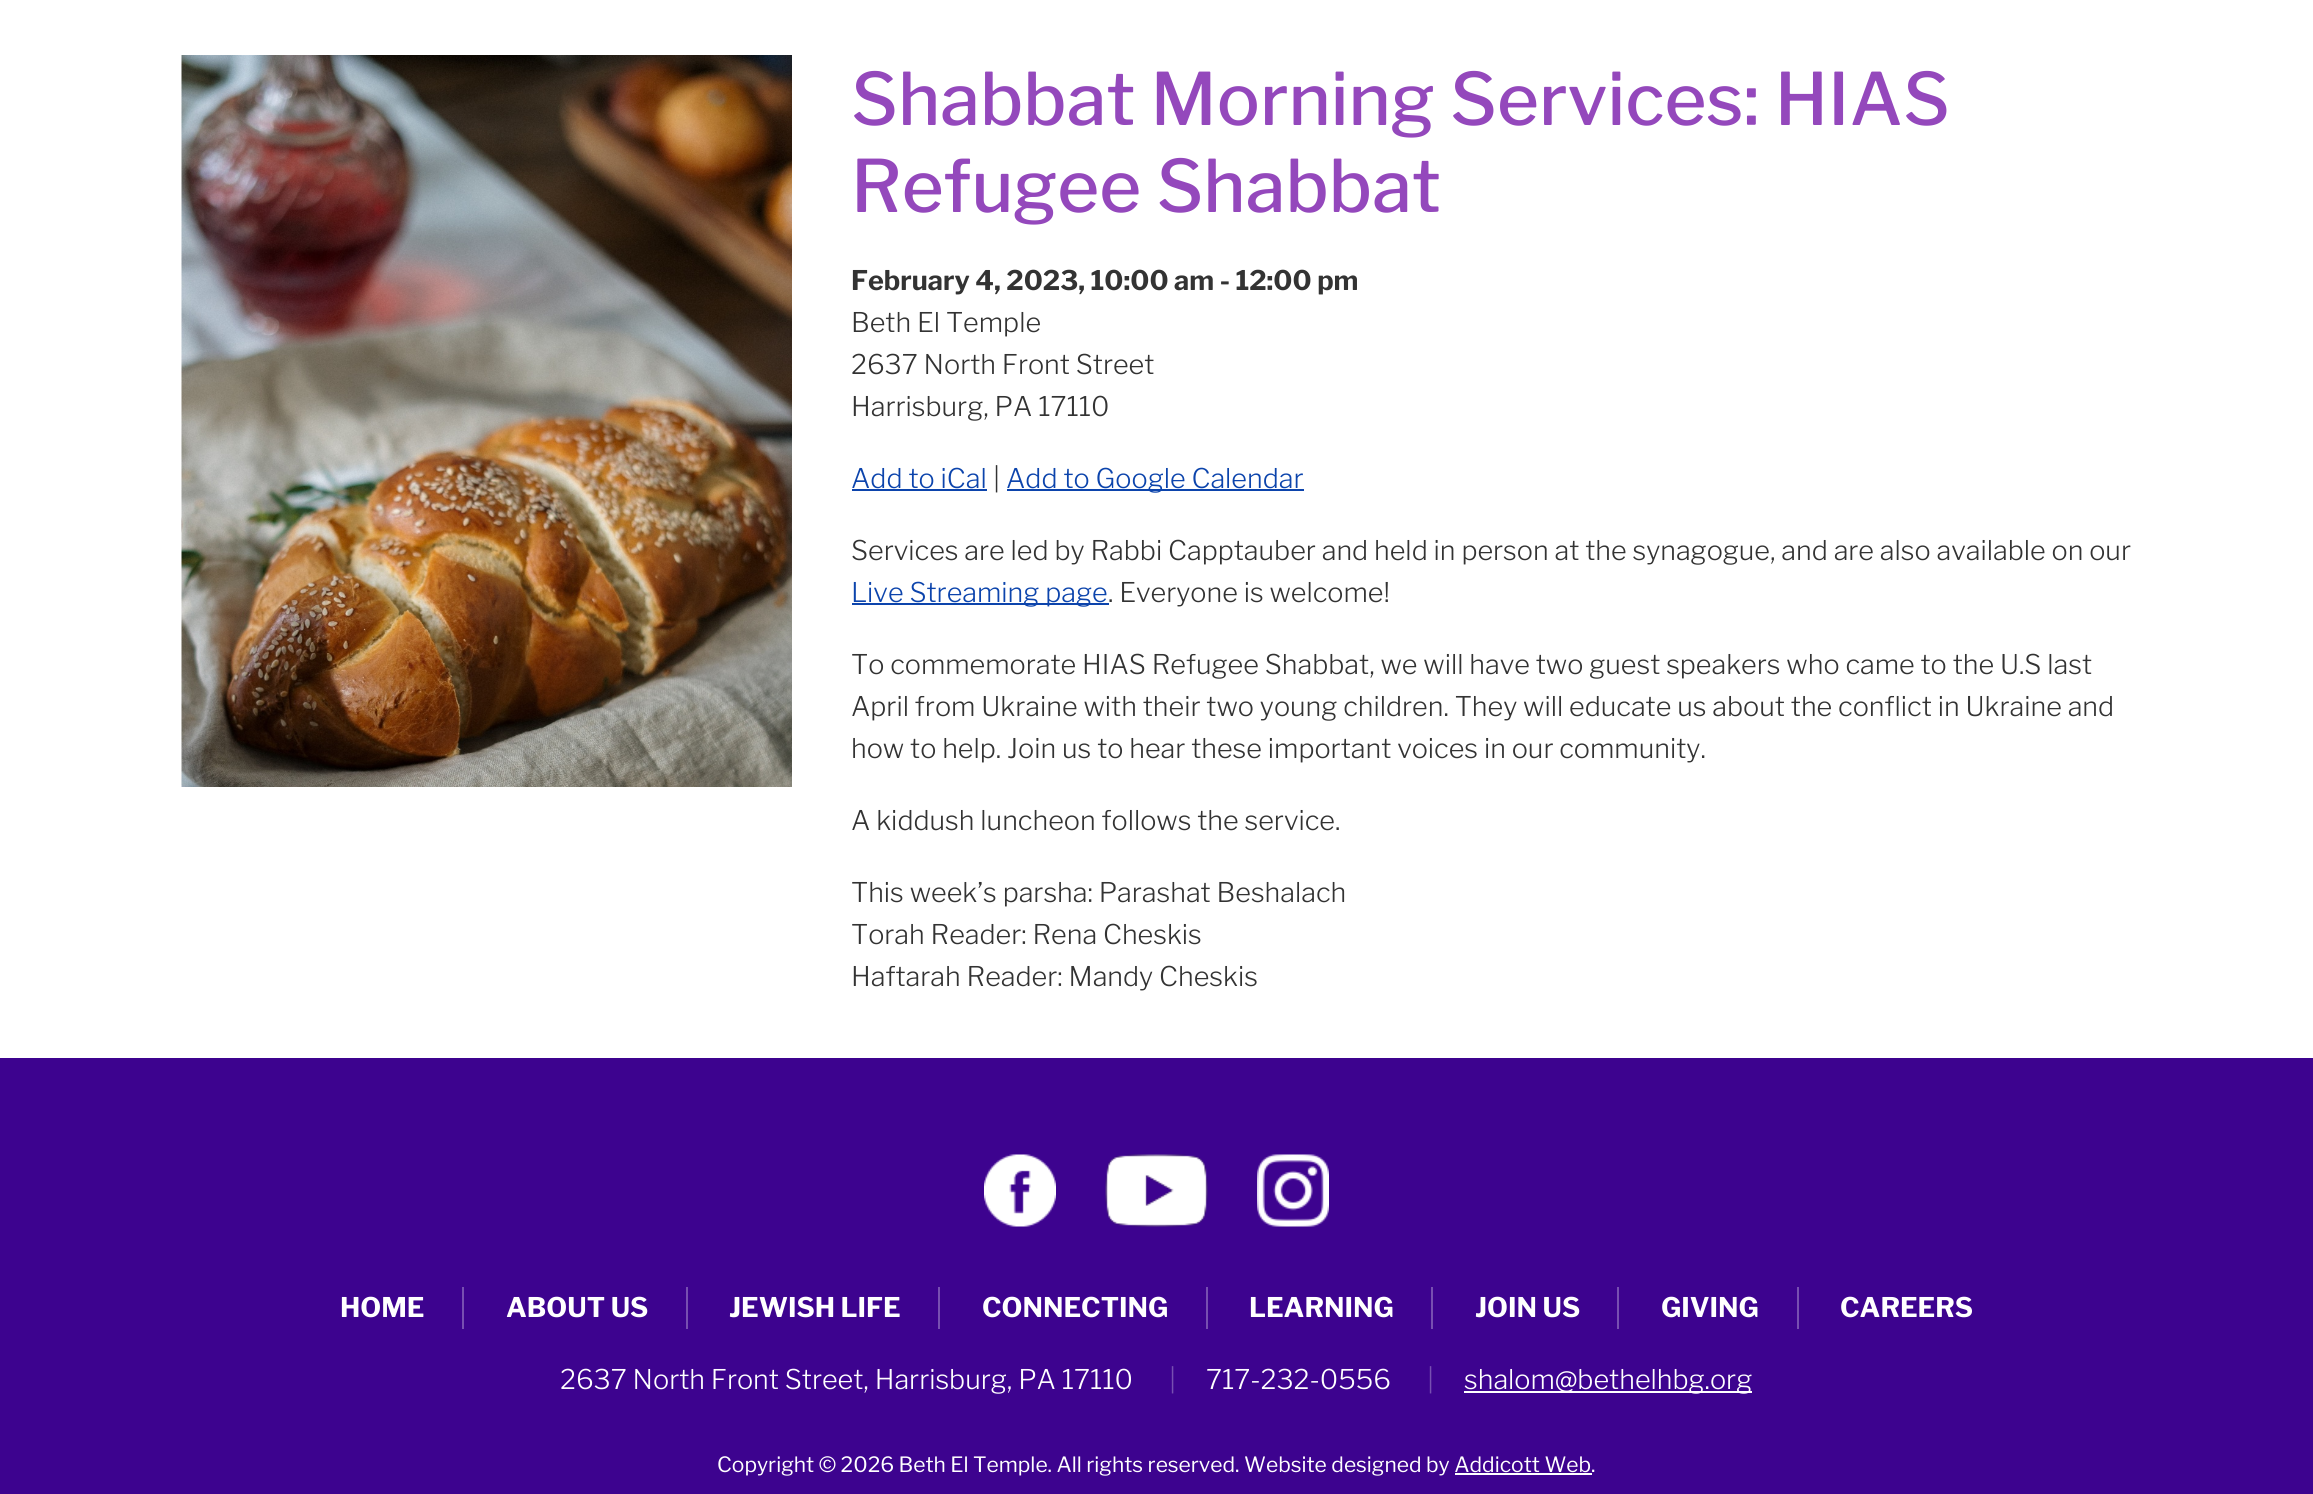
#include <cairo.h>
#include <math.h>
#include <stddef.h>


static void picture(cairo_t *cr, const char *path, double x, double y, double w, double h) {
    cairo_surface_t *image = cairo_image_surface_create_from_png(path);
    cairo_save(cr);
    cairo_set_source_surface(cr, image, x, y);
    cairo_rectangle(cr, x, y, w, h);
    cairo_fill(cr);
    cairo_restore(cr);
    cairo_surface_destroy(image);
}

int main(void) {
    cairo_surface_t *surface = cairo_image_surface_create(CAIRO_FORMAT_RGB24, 2313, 1494);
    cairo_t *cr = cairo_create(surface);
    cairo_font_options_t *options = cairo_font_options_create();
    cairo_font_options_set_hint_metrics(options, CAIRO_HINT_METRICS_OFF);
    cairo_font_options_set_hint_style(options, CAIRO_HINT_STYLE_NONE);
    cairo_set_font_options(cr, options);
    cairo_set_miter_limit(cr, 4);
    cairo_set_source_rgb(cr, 0.239, 0.012, 0.561);
    cairo_paint(cr);
    cairo_set_source_rgb(cr, 1, 1, 1);
    cairo_rectangle(cr, 0, 0, 2313, 1058);
    cairo_fill(cr);
    picture(cr, "img1.png", 181, 55, 611, 732);
    cairo_select_font_face(cr, "Libre Franklin Medium", CAIRO_FONT_SLANT_NORMAL, CAIRO_FONT_WEIGHT_NORMAL);
    cairo_set_font_size(cr, 72);
    cairo_set_source_rgb(cr, 0.58, 0.282, 0.737);
    cairo_move_to(cr, 851, 125);
    cairo_show_text(cr, "Shabbat Morning Services: HIAS");
    cairo_move_to(cr, 851, 212);
    cairo_show_text(cr, "Refugee Shabbat");
    cairo_select_font_face(cr, "Libre Franklin", CAIRO_FONT_SLANT_NORMAL, CAIRO_FONT_WEIGHT_BOLD);
    cairo_set_font_size(cr, 27);
    cairo_set_source_rgb(cr, 0.2, 0.2, 0.2);
    cairo_move_to(cr, 851, 290);
    cairo_show_text(cr, "February 4, 2023, 10:00 am - 12:00 pm");
    cairo_select_font_face(cr, "Libre Franklin Light", CAIRO_FONT_SLANT_NORMAL, CAIRO_FONT_WEIGHT_NORMAL);
    cairo_move_to(cr, 851, 332);
    cairo_show_text(cr, "Beth El Temple");
    cairo_move_to(cr, 851, 374);
    cairo_show_text(cr, "2637 North Front Street");
    cairo_move_to(cr, 851, 416);
    cairo_show_text(cr, "Harrisburg, PA 17110");
    cairo_set_source_rgb(cr, 0.047, 0.267, 0.675);
    cairo_move_to(cr, 851, 488);
    cairo_show_text(cr, "Add to iCal");
    cairo_rectangle(cr, 852, 489, 135, 2);
    cairo_fill(cr);
    cairo_set_source_rgb(cr, 0.2, 0.2, 0.2);
    cairo_move_to(cr, 993, 488);
    cairo_show_text(cr, "|");
    cairo_set_source_rgb(cr, 0.047, 0.267, 0.675);
    cairo_rectangle(cr, 1007, 489, 297, 2);
    cairo_fill(cr);
    cairo_move_to(cr, 1006, 488);
    cairo_show_text(cr, "Add to Google Calendar");
    cairo_set_source_rgb(cr, 0.2, 0.2, 0.2);
    cairo_move_to(cr, 851, 560);
    cairo_show_text(cr, "Services are led by Rabbi Capptauber and held in person at the synagogue, and are also available on our");
    cairo_set_source_rgb(cr, 0.047, 0.267, 0.675);
    cairo_rectangle(cr, 852, 603, 257, 2);
    cairo_fill(cr);
    cairo_move_to(cr, 851, 602);
    cairo_show_text(cr, "Live Streaming page");
    cairo_set_source_rgb(cr, 0.2, 0.2, 0.2);
    cairo_move_to(cr, 1108, 602);
    cairo_show_text(cr, ". Everyone is welcome!");
    cairo_move_to(cr, 851, 674);
    cairo_show_text(cr, "To commemorate HIAS Refugee Shabbat, we will have two guest speakers who came to the U.S last");
    cairo_move_to(cr, 851, 716);
    cairo_show_text(cr, "April from Ukraine with their two young children. They will educate us about the conflict in Ukraine and");
    cairo_move_to(cr, 851, 758);
    cairo_show_text(cr, "how to help. Join us to hear these important voices in our community.");
    cairo_move_to(cr, 851, 830);
    cairo_show_text(cr, "A kiddush luncheon follows the service.");
    cairo_move_to(cr, 851, 902);
    cairo_show_text(cr, "This week’s parsha: Parashat Beshalach");
    cairo_move_to(cr, 851, 944);
    cairo_show_text(cr, "Torah Reader: Rena Cheskis");
    cairo_move_to(cr, 851, 986);
    cairo_show_text(cr, "Haftarah Reader: Mandy Cheskis");
    picture(cr, "img2.png", 984, 1154, 72, 73);
    picture(cr, "img3.png", 1105, 1154, 103, 73);
    picture(cr, "img4.png", 1257, 1154, 72, 73);
    cairo_set_source_rgb(cr, 0.467, 0.31, 0.694);
    cairo_rectangle(cr, 462, 1287, 2, 42);
    cairo_fill(cr);
    cairo_select_font_face(cr, "Libre Franklin", CAIRO_FONT_SLANT_NORMAL, CAIRO_FONT_WEIGHT_BOLD);
    cairo_set_source_rgb(cr, 1, 1, 1);
    cairo_move_to(cr, 340, 1317);
    cairo_show_text(cr, "HOME");
    cairo_set_source_rgb(cr, 0.467, 0.31, 0.694);
    cairo_rectangle(cr, 686, 1287, 2, 42);
    cairo_fill(cr);
    cairo_set_source_rgb(cr, 1, 1, 1);
    cairo_move_to(cr, 506, 1317);
    cairo_show_text(cr, "ABOUT US");
    cairo_set_source_rgb(cr, 0.467, 0.31, 0.694);
    cairo_rectangle(cr, 938, 1287, 2, 42);
    cairo_fill(cr);
    cairo_set_source_rgb(cr, 1, 1, 1);
    cairo_move_to(cr, 729, 1317);
    cairo_show_text(cr, "JEWISH LIFE");
    cairo_set_source_rgb(cr, 0.467, 0.31, 0.694);
    cairo_rectangle(cr, 1206, 1287, 2, 42);
    cairo_fill(cr);
    cairo_set_source_rgb(cr, 1, 1, 1);
    cairo_move_to(cr, 982, 1317);
    cairo_show_text(cr, "CONNECTING");
    cairo_set_source_rgb(cr, 0.467, 0.31, 0.694);
    cairo_rectangle(cr, 1431, 1287, 2, 42);
    cairo_fill(cr);
    cairo_set_source_rgb(cr, 1, 1, 1);
    cairo_move_to(cr, 1249, 1317);
    cairo_show_text(cr, "LEARNING");
    cairo_set_source_rgb(cr, 0.467, 0.31, 0.694);
    cairo_rectangle(cr, 1617, 1287, 2, 42);
    cairo_fill(cr);
    cairo_set_source_rgb(cr, 1, 1, 1);
    cairo_move_to(cr, 1475, 1317);
    cairo_show_text(cr, "JOIN US");
    cairo_set_source_rgb(cr, 0.467, 0.31, 0.694);
    cairo_rectangle(cr, 1797, 1287, 2, 42);
    cairo_fill(cr);
    cairo_set_source_rgb(cr, 1, 1, 1);
    cairo_move_to(cr, 1661, 1317);
    cairo_show_text(cr, "GIVING");
    cairo_move_to(cr, 1840, 1317);
    cairo_show_text(cr, "CAREERS");
    cairo_select_font_face(cr, "Libre Franklin Light", CAIRO_FONT_SLANT_NORMAL, CAIRO_FONT_WEIGHT_NORMAL);
    cairo_move_to(cr, 560, 1389);
    cairo_show_text(cr, "2637 North Front Street, Harrisburg, PA 17110");
    cairo_set_source_rgb(cr, 0.467, 0.31, 0.694);
    cairo_move_to(cr, 1169, 1389);
    cairo_show_text(cr, "|");
    cairo_set_source_rgb(cr, 1, 1, 1);
    cairo_move_to(cr, 1206, 1389);
    cairo_show_text(cr, "717-232-0556");
    cairo_set_source_rgb(cr, 0.467, 0.31, 0.694);
    cairo_move_to(cr, 1427, 1389);
    cairo_show_text(cr, "|");
    cairo_set_source_rgb(cr, 1, 1, 1);
    cairo_rectangle(cr, 1464, 1391, 288, 2);
    cairo_fill(cr);
    cairo_move_to(cr, 1464, 1389);
    cairo_show_text(cr, "shalom@bethelhbg.org");
    cairo_select_font_face(cr, "Libre Franklin", CAIRO_FONT_SLANT_NORMAL, CAIRO_FONT_WEIGHT_NORMAL);
    cairo_set_font_size(cr, 21);
    cairo_move_to(cr, 717, 1472);
    cairo_show_text(cr, "Copyright © 2026 Beth El Temple. All rights reserved. Website designed by Addicott Web.");
    cairo_rectangle(cr, 1455, 1473, 137, 2);
    cairo_fill(cr);
    cairo_surface_write_to_png(surface, "page.png");
    cairo_font_options_destroy(options);
    cairo_destroy(cr);
    cairo_surface_destroy(surface);
    return 0;
}
